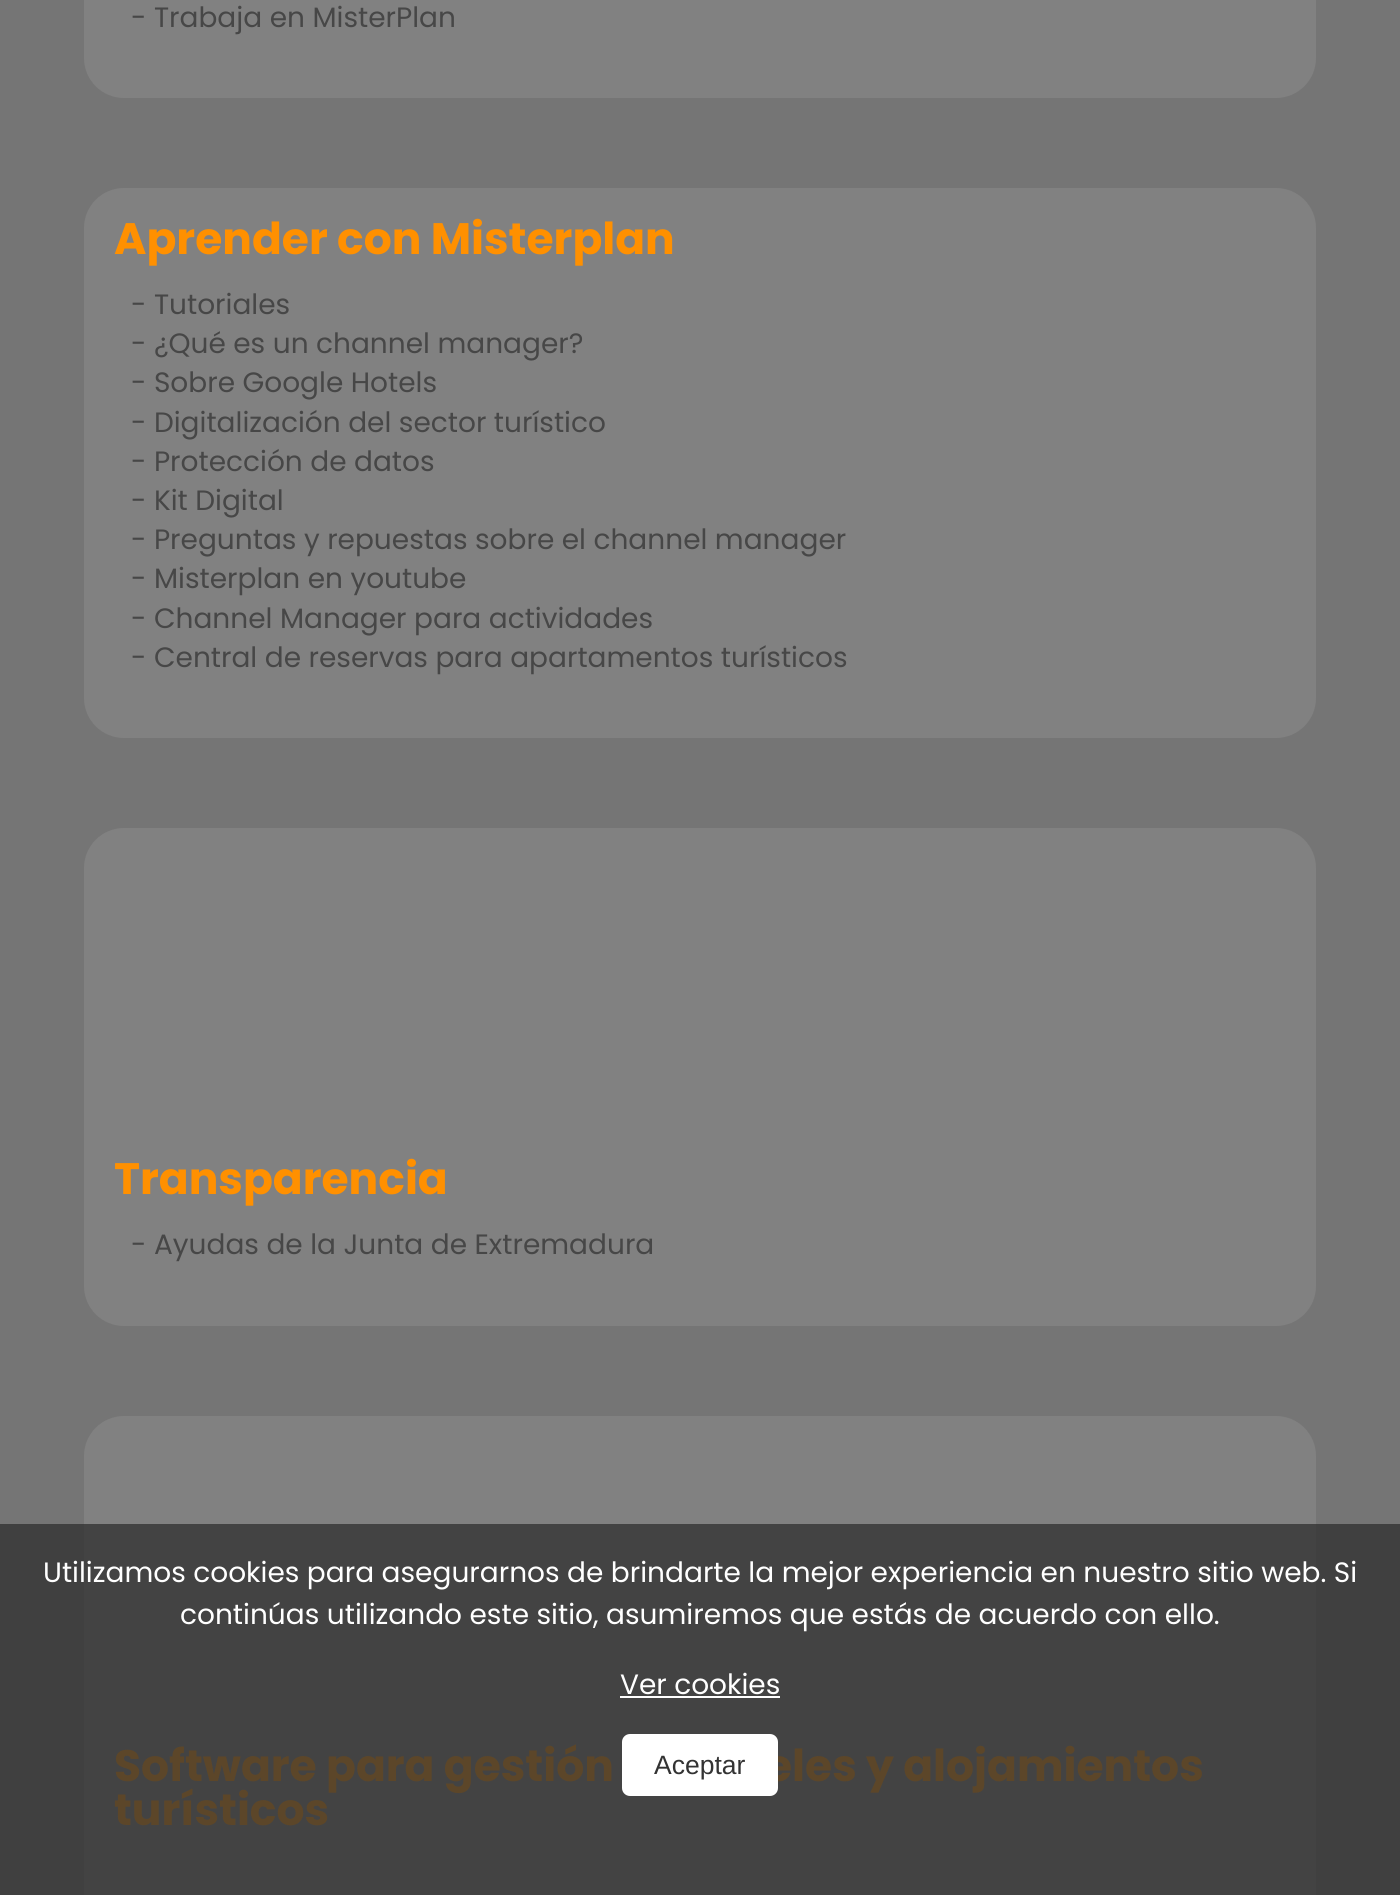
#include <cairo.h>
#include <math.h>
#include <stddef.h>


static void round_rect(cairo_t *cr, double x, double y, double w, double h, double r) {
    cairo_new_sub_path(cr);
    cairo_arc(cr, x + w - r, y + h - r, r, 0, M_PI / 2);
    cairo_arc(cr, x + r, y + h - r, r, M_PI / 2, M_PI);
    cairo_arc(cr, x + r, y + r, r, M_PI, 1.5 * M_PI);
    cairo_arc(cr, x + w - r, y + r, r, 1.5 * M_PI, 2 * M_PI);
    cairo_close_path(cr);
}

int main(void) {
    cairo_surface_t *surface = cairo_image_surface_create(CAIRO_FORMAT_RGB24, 1400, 1895);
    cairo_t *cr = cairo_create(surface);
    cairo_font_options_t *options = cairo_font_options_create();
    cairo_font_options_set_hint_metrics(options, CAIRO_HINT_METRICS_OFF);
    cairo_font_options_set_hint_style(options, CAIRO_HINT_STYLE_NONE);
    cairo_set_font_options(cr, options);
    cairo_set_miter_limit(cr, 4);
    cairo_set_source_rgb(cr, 0.459, 0.459, 0.459);
    cairo_paint(cr);
    cairo_set_source_rgb(cr, 0.251, 0.251, 0.251);
    cairo_rectangle(cr, 0, 1524, 1400, 371);
    cairo_fill(cr);
    cairo_set_source_rgb(cr, 0.506, 0.506, 0.506);
    round_rect(cr, 84, -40, 1232, 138, 40);
    cairo_fill(cr);
    cairo_select_font_face(cr, "Poppins", CAIRO_FONT_SLANT_NORMAL, CAIRO_FONT_WEIGHT_NORMAL);
    cairo_set_font_size(cr, 28);
    cairo_set_source_rgb(cr, 0.278, 0.278, 0.278);
    cairo_move_to(cr, 131, 27);
    cairo_show_text(cr, "- Trabaja en MisterPlan");
    cairo_set_source_rgb(cr, 0.506, 0.506, 0.506);
    round_rect(cr, 84, 188, 1232, 550, 40);
    cairo_fill(cr);
    cairo_select_font_face(cr, "Poppins", CAIRO_FONT_SLANT_NORMAL, CAIRO_FONT_WEIGHT_BOLD);
    cairo_set_font_size(cr, 44);
    cairo_set_source_rgb(cr, 1, 0.565, 0);
    cairo_move_to(cr, 114, 254);
    cairo_show_text(cr, "Aprender con Misterplan");
    cairo_select_font_face(cr, "Poppins", CAIRO_FONT_SLANT_NORMAL, CAIRO_FONT_WEIGHT_NORMAL);
    cairo_set_font_size(cr, 28);
    cairo_set_source_rgb(cr, 0.278, 0.278, 0.278);
    cairo_move_to(cr, 131, 314);
    cairo_show_text(cr, "- Tutoriales");
    cairo_move_to(cr, 131, 353);
    cairo_show_text(cr, "- ¿Qué es un channel manager?");
    cairo_move_to(cr, 131, 392);
    cairo_show_text(cr, "- Sobre Google Hotels");
    cairo_move_to(cr, 131, 432);
    cairo_show_text(cr, "- Digitalización del sector turístico");
    cairo_move_to(cr, 131, 471);
    cairo_show_text(cr, "- Protección de datos");
    cairo_move_to(cr, 131, 510);
    cairo_show_text(cr, "- Kit Digital");
    cairo_move_to(cr, 131, 549);
    cairo_show_text(cr, "- Preguntas y repuestas sobre el channel manager");
    cairo_move_to(cr, 131, 588);
    cairo_show_text(cr, "- Misterplan en youtube");
    cairo_move_to(cr, 131, 628);
    cairo_show_text(cr, "- Channel Manager para actividades");
    cairo_move_to(cr, 131, 667);
    cairo_show_text(cr, "- Central de reservas para apartamentos turísticos");
    cairo_set_source_rgb(cr, 0.506, 0.506, 0.506);
    round_rect(cr, 84, 828, 1232, 498, 40);
    cairo_fill(cr);
    cairo_select_font_face(cr, "Poppins", CAIRO_FONT_SLANT_NORMAL, CAIRO_FONT_WEIGHT_BOLD);
    cairo_set_font_size(cr, 44);
    cairo_set_source_rgb(cr, 1, 0.565, 0);
    cairo_move_to(cr, 114, 1194);
    cairo_show_text(cr, "Transparencia");
    cairo_select_font_face(cr, "Poppins", CAIRO_FONT_SLANT_NORMAL, CAIRO_FONT_WEIGHT_NORMAL);
    cairo_set_font_size(cr, 28);
    cairo_set_source_rgb(cr, 0.278, 0.278, 0.278);
    cairo_move_to(cr, 131, 1254);
    cairo_show_text(cr, "- Ayudas de la Junta de Extremadura");
    cairo_set_source_rgb(cr, 0.506, 0.506, 0.506);
    round_rect(cr, 84, 1416, 1232, 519, 40);
    cairo_fill(cr);
    cairo_set_source_rgb(cr, 0.263, 0.263, 0.263);
    cairo_rectangle(cr, 84, 1524, 1232, 371);
    cairo_fill(cr);
    cairo_select_font_face(cr, "Poppins", CAIRO_FONT_SLANT_NORMAL, CAIRO_FONT_WEIGHT_BOLD);
    cairo_set_font_size(cr, 44);
    cairo_set_source_rgb(cr, 0.361, 0.275, 0.161);
    cairo_move_to(cr, 114, 1781);
    cairo_show_text(cr, "Software para gestión");
    cairo_move_to(cr, 765, 1781);
    cairo_show_text(cr, "eles y alojamientos");
    cairo_move_to(cr, 114, 1825);
    cairo_show_text(cr, "turísticos");
    cairo_select_font_face(cr, "Poppins", CAIRO_FONT_SLANT_NORMAL, CAIRO_FONT_WEIGHT_NORMAL);
    cairo_set_font_size(cr, 28);
    cairo_set_source_rgb(cr, 1, 1, 1);
    cairo_move_to(cr, 43, 1582);
    cairo_show_text(cr, "Utilizamos cookies para asegurarnos de brindarte la mejor experiencia en nuestro sitio web. Si");
    cairo_move_to(cr, 180, 1624);
    cairo_show_text(cr, "continúas utilizando este sitio, asumiremos que estás de acuerdo con ello.");
    cairo_move_to(cr, 620, 1694);
    cairo_show_text(cr, "Ver cookies");
    cairo_rectangle(cr, 620, 1696, 160, 2);
    cairo_fill(cr);
    round_rect(cr, 622, 1734, 156, 62, 8);
    cairo_fill(cr);
    cairo_select_font_face(cr, "Liberation Sans", CAIRO_FONT_SLANT_NORMAL, CAIRO_FONT_WEIGHT_NORMAL);
    cairo_set_font_size(cr, 26.5);
    cairo_set_source_rgb(cr, 0.2, 0.2, 0.2);
    cairo_move_to(cr, 654, 1774);
    cairo_show_text(cr, "Aceptar");
    cairo_surface_write_to_png(surface, "page.png");
    cairo_font_options_destroy(options);
    cairo_destroy(cr);
    cairo_surface_destroy(surface);
    return 0;
}
